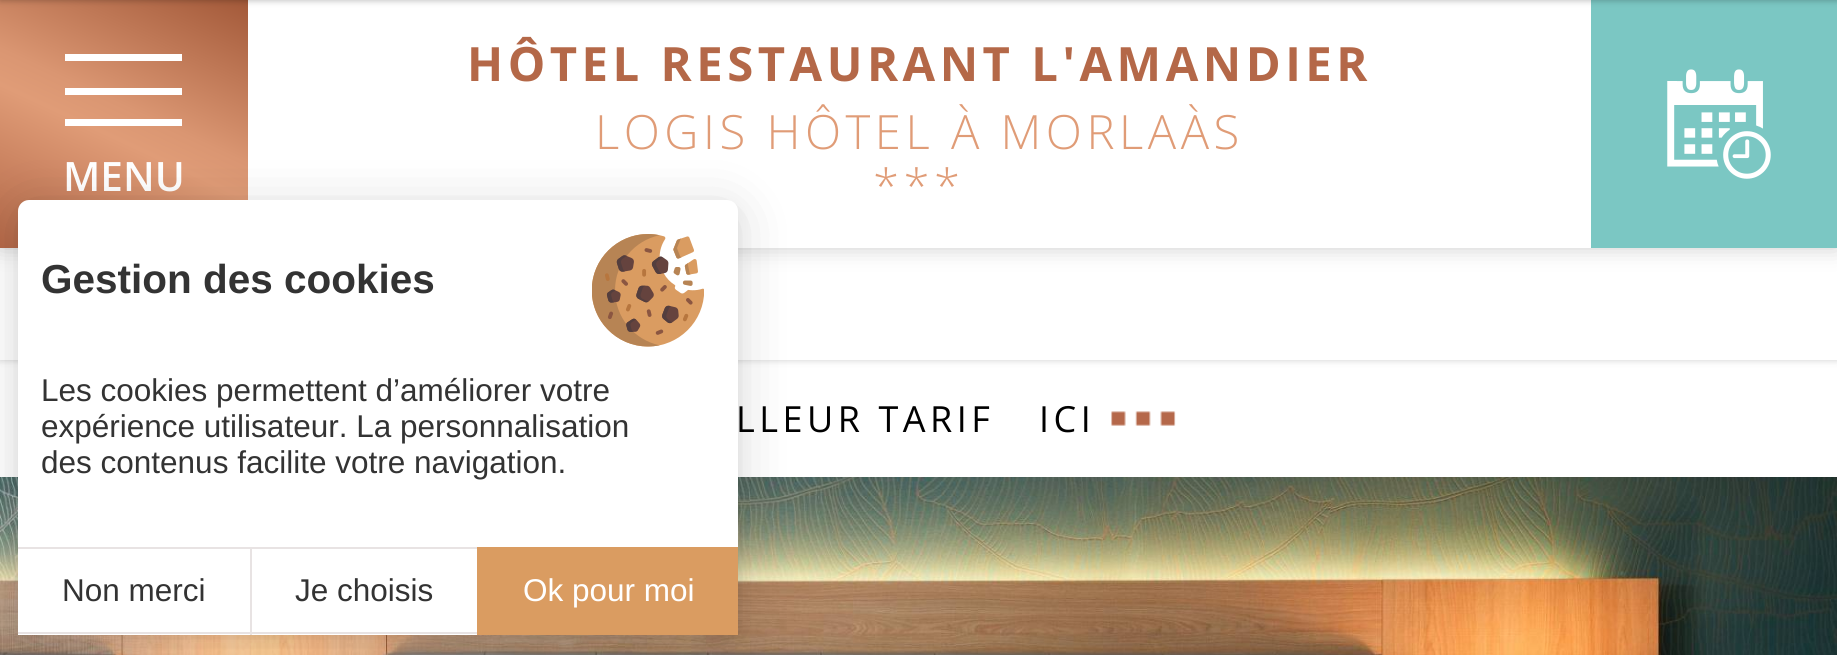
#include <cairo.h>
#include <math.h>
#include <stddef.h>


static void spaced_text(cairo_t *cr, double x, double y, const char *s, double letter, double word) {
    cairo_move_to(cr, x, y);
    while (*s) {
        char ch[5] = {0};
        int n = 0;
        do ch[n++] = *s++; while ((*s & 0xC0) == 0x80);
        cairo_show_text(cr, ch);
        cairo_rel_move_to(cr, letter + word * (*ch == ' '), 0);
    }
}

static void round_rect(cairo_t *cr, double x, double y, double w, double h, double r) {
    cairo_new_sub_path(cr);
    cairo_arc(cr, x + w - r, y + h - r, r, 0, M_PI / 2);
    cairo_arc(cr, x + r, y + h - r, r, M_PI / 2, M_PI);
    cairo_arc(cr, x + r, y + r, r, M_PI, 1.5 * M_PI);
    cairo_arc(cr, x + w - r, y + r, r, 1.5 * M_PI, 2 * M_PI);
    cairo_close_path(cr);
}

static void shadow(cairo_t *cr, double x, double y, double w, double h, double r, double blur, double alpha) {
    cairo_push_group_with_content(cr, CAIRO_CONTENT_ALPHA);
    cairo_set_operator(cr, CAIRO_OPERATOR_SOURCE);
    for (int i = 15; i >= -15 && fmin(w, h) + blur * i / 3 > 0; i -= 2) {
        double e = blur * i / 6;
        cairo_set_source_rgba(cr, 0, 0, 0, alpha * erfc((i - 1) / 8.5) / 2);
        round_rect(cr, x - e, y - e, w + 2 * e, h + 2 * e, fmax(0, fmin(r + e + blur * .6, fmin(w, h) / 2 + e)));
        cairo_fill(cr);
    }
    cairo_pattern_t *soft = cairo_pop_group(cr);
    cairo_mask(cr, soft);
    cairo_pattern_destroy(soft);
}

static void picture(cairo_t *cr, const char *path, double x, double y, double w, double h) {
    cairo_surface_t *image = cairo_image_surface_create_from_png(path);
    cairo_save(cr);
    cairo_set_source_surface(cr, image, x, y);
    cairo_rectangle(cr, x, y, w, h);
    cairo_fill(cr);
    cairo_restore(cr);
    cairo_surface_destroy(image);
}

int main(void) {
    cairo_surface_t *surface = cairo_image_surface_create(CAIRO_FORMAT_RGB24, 1837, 655);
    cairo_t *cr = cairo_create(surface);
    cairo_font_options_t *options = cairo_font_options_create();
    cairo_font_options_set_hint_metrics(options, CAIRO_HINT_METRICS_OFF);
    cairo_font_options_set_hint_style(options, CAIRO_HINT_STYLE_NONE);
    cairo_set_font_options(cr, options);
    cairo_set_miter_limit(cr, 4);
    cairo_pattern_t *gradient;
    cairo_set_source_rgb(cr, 1, 1, 1);
    cairo_paint(cr);
    cairo_set_source_rgb(cr, 0, 0, 0);
    shadow(cr, 0, 248, 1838, 112, 0, 3.5, 0.2);
    cairo_set_source_rgb(cr, 1, 1, 1);
    cairo_rectangle(cr, 0, 248, 1837, 112);
    cairo_fill(cr);
    cairo_set_source_rgb(cr, 0, 0, 0);
    shadow(cr, 0, 0, 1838, 248, 0, 11, 0.2);
    cairo_set_source_rgb(cr, 1, 1, 1);
    cairo_rectangle(cr, 248, 0, 1343, 248);
    cairo_fill(cr);
    gradient = cairo_pattern_create_linear(54, 273, 193, -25);
    cairo_pattern_add_color_stop_rgba(gradient, 0, 0.706, 0.408, 0.282, 1);
    cairo_pattern_add_color_stop_rgba(gradient, 0.45, 0.878, 0.612, 0.467, 1);
    cairo_pattern_add_color_stop_rgba(gradient, 0.55, 0.855, 0.588, 0.447, 1);
    cairo_pattern_add_color_stop_rgba(gradient, 1, 0.639, 0.349, 0.224, 1);
    cairo_set_source(cr, gradient);
    cairo_pattern_destroy(gradient);
    cairo_rectangle(cr, 0, 0, 248, 248);
    cairo_fill(cr);
    cairo_set_source_rgb(cr, 0.482, 0.78, 0.765);
    cairo_rectangle(cr, 1591, 0, 246, 248);
    cairo_fill(cr);
    cairo_set_source_rgb(cr, 0, 0, 0);
    shadow(cr, 0, -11, 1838, 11, 0, 3.5, 0.3);
    cairo_set_source_rgb(cr, 1, 1, 1);
    cairo_rectangle(cr, 65, 54, 117, 7);
    cairo_fill(cr);
    cairo_rectangle(cr, 65, 88, 117, 7);
    cairo_fill(cr);
    cairo_rectangle(cr, 65, 119, 117, 7);
    cairo_fill(cr);
    cairo_select_font_face(cr, "Open Sans SemiBold", CAIRO_FONT_SLANT_NORMAL, CAIRO_FONT_WEIGHT_NORMAL);
    cairo_set_font_size(cr, 40.5);
    cairo_move_to(cr, 63, 191);
    cairo_show_text(cr, "MENU");
    cairo_select_font_face(cr, "Open Sans", CAIRO_FONT_SLANT_NORMAL, CAIRO_FONT_WEIGHT_BOLD);
    cairo_set_font_size(cr, 47.25);
    cairo_set_source_rgb(cr, 0.706, 0.408, 0.282);
    spaced_text(cr, 467, 81, "HÔTEL RESTAURANT L'AMANDIER", 4.5, 0);
    cairo_select_font_face(cr, "Open Sans Light", CAIRO_FONT_SLANT_NORMAL, CAIRO_FONT_WEIGHT_NORMAL);
    cairo_set_source_rgb(cr, 0.878, 0.612, 0.467);
    spaced_text(cr, 595, 149, "LOGIS HÔTEL À MORLAÀS", 4.5, 0);
    spaced_text(cr, 873, 203, "***", 4.5, 0);
    picture(cr, "img1.png", 1667, 69, 104, 110);
    picture(cr, "img4.png", 0, 477, 1837, 178);
    cairo_set_source_rgb(cr, 0, 0, 0);
    shadow(cr, 18, 205, 720, 434, 11, 7, 0.05);
    shadow(cr, 18, 209, 720, 435, 11, 27, 0.15);
    cairo_set_source_rgb(cr, 1, 1, 1);
    cairo_new_path(cr);
    cairo_move_to(cr, 29, 200);
    cairo_line_to(cr, 727, 200);
    cairo_curve_to(cr, 733, 200, 738, 205, 738, 211);
    cairo_line_to(cr, 738, 635);
    cairo_line_to(cr, 18, 635);
    cairo_line_to(cr, 18, 211);
    cairo_curve_to(cr, 18, 205, 23, 200, 29, 200);
    cairo_close_path(cr);
    cairo_fill(cr);
    picture(cr, "img2.png", 592, 234, 112, 113);
    cairo_select_font_face(cr, "Liberation Sans", CAIRO_FONT_SLANT_NORMAL, CAIRO_FONT_WEIGHT_BOLD);
    cairo_set_font_size(cr, 40.5);
    cairo_set_source_rgb(cr, 0.2, 0.2, 0.2);
    cairo_move_to(cr, 41, 293);
    cairo_show_text(cr, "Gestion des cookies");
    cairo_select_font_face(cr, "Liberation Sans", CAIRO_FONT_SLANT_NORMAL, CAIRO_FONT_WEIGHT_NORMAL);
    cairo_set_font_size(cr, 31.5);
    cairo_move_to(cr, 41, 401);
    cairo_show_text(cr, "Les cookies permettent d’améliorer votre");
    cairo_move_to(cr, 41, 437);
    cairo_show_text(cr, "expérience utilisateur. La personnalisation");
    cairo_move_to(cr, 41, 473);
    cairo_show_text(cr, "des contenus facilite votre navigation.");
    cairo_set_source_rgb(cr, 0.91, 0.89, 0.89);
    cairo_rectangle(cr, 18, 547, 459, 2);
    cairo_fill(cr);
    cairo_rectangle(cr, 18, 632, 459, 2);
    cairo_fill(cr);
    cairo_set_source_rgb(cr, 0.2, 0.2, 0.2);
    cairo_move_to(cr, 62, 601);
    cairo_show_text(cr, "Non merci");
    cairo_set_source_rgb(cr, 0.91, 0.89, 0.89);
    cairo_rectangle(cr, 250, 547, 2, 88);
    cairo_fill(cr);
    cairo_set_source_rgb(cr, 0.2, 0.2, 0.2);
    cairo_move_to(cr, 295, 601);
    cairo_show_text(cr, "Je choisis");
    cairo_set_source_rgb(cr, 0.855, 0.612, 0.38);
    cairo_rectangle(cr, 477, 547, 261, 88);
    cairo_fill(cr);
    cairo_set_source_rgb(cr, 1, 1, 1);
    cairo_move_to(cr, 523, 601);
    cairo_show_text(cr, "Ok pour moi");
    cairo_select_font_face(cr, "Open Sans", CAIRO_FONT_SLANT_NORMAL, CAIRO_FONT_WEIGHT_NORMAL);
    cairo_set_font_size(cr, 36);
    cairo_set_source_rgb(cr, 0, 0, 0);
    spaced_text(cr, 736, 432, "LLEUR TARIF", 4.5, 0);
    spaced_text(cr, 1039, 432, "ICI", 4.5, 0);
    picture(cr, "img3.png", 1111, 411, 65, 15);
    cairo_surface_write_to_png(surface, "page.png");
    cairo_font_options_destroy(options);
    cairo_destroy(cr);
    cairo_surface_destroy(surface);
    return 0;
}
